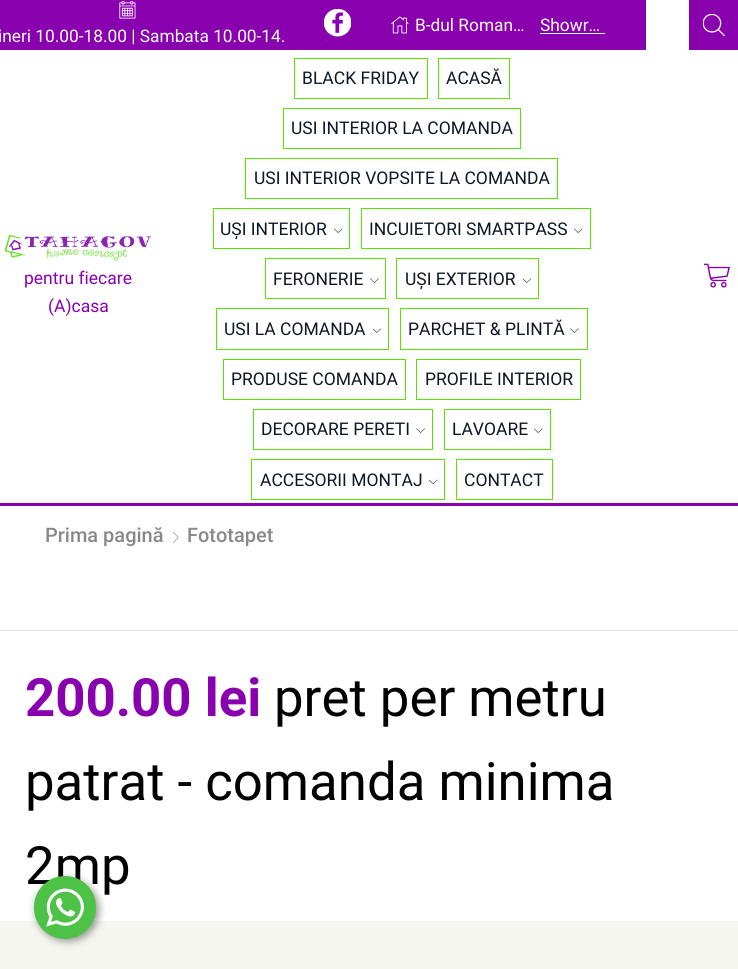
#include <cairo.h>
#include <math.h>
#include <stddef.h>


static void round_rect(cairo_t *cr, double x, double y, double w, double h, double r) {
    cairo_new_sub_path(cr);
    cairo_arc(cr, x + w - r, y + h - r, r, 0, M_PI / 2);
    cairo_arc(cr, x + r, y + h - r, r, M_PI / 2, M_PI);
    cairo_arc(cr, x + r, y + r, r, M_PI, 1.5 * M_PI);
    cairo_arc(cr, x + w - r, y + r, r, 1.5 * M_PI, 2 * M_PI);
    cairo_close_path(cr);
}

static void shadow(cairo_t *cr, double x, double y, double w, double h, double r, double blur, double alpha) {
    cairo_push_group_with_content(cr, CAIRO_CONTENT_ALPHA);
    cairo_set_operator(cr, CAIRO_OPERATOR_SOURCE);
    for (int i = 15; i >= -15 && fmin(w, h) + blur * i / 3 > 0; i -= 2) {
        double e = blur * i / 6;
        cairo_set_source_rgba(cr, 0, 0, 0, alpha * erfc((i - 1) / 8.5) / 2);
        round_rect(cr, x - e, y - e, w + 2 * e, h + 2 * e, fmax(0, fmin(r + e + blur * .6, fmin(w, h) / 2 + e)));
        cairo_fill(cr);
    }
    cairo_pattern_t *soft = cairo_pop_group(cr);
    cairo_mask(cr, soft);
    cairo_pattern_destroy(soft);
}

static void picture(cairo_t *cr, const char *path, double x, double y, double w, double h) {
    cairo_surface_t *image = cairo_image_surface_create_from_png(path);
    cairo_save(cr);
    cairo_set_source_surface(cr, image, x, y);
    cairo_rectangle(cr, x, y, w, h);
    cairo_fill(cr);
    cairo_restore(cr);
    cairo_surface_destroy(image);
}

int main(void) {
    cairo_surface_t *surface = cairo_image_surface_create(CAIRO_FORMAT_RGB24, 738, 969);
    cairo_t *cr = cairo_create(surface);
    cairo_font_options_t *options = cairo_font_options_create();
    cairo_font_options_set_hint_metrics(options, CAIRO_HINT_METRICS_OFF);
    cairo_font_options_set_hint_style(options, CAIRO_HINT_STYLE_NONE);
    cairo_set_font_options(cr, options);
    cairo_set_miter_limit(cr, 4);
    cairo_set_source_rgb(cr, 1, 1, 1);
    cairo_paint(cr);
    cairo_set_source_rgb(cr, 0.537, 0, 0.686);
    cairo_rectangle(cr, 0, 0, 646, 50);
    cairo_fill(cr);
    picture(cr, "img1.png", 324, 9, 27, 28);
    picture(cr, "img2.png", 391, 16, 18, 18);
    cairo_select_font_face(cr, "Roboto", CAIRO_FONT_SLANT_NORMAL, CAIRO_FONT_WEIGHT_NORMAL);
    cairo_set_font_size(cr, 17.3);
    cairo_set_source_rgb(cr, 1, 1, 1);
    cairo_move_to(cr, 415, 31);
    cairo_show_text(cr, "B-dul Roman…");
    cairo_move_to(cr, 540, 31);
    cairo_show_text(cr, "Showr…");
    cairo_rectangle(cr, 540, 33, 65, 1);
    cairo_fill(cr);
    cairo_set_source_rgb(cr, 0.537, 0, 0.686);
    cairo_rectangle(cr, 689, 0, 49, 50);
    cairo_fill(cr);
    picture(cr, "img3.png", 703, 14, 22, 22);
    picture(cr, "img4.png", 119, 1, 17, 18);
    cairo_set_source_rgb(cr, 1, 1, 1);
    cairo_move_to(cr, -2, 42);
    cairo_show_text(cr, "ineri 10.00-18.00 | Sambata 10.00-14.");
    cairo_set_source_rgb(cr, 0.537, 0, 0.686);
    cairo_rectangle(cr, 0, 503, 738, 3);
    cairo_fill(cr);
    picture(cr, "img5.png", 4, 235, 147, 26);
    cairo_set_font_size(cr, 17.5);
    cairo_move_to(cr, 24, 284);
    cairo_show_text(cr, "pentru fiecare");
    cairo_move_to(cr, 48, 312);
    cairo_show_text(cr, "(A)casa");
    cairo_rectangle(cr, 294.5, 58.5, 133, 40);
    cairo_set_source_rgb(cr, 0.361, 0.89, 0.024);
    cairo_set_line_width(cr, 1);
    cairo_stroke(cr);
    cairo_set_source_rgb(cr, 0.059, 0.086, 0.145);
    cairo_move_to(cr, 302, 84);
    cairo_show_text(cr, "BLACK FRIDAY");
    cairo_rectangle(cr, 438.5, 58.5, 71, 40);
    cairo_set_source_rgb(cr, 0.361, 0.89, 0.024);
    cairo_stroke(cr);
    cairo_set_source_rgb(cr, 0.059, 0.086, 0.145);
    cairo_move_to(cr, 446, 84);
    cairo_show_text(cr, "ACASĂ");
    cairo_rectangle(cr, 283.5, 108.5, 237, 40);
    cairo_set_source_rgb(cr, 0.361, 0.89, 0.024);
    cairo_stroke(cr);
    cairo_set_source_rgb(cr, 0.059, 0.086, 0.145);
    cairo_move_to(cr, 291, 134);
    cairo_show_text(cr, "USI INTERIOR LA COMANDA");
    cairo_rectangle(cr, 245.5, 158.5, 312, 40);
    cairo_set_source_rgb(cr, 0.361, 0.89, 0.024);
    cairo_stroke(cr);
    cairo_set_source_rgb(cr, 0.059, 0.086, 0.145);
    cairo_move_to(cr, 254, 184);
    cairo_show_text(cr, "USI INTERIOR VOPSITE LA COMANDA");
    cairo_rectangle(cr, 213.5, 208.5, 136, 40);
    cairo_set_source_rgb(cr, 0.361, 0.89, 0.024);
    cairo_stroke(cr);
    cairo_set_source_rgb(cr, 0.059, 0.086, 0.145);
    cairo_move_to(cr, 220, 235);
    cairo_show_text(cr, "UȘI INTERIOR");
    picture(cr, "img6.png", 334, 228, 9, 5);
    cairo_rectangle(cr, 361.5, 208.5, 229, 40);
    cairo_set_source_rgb(cr, 0.361, 0.89, 0.024);
    cairo_stroke(cr);
    cairo_set_source_rgb(cr, 0.059, 0.086, 0.145);
    cairo_move_to(cr, 369, 235);
    cairo_show_text(cr, "INCUIETORI SMARTPASS");
    picture(cr, "img6.png", 574, 228, 9, 5);
    cairo_rectangle(cr, 265.5, 258.5, 120, 40);
    cairo_set_source_rgb(cr, 0.361, 0.89, 0.024);
    cairo_stroke(cr);
    cairo_set_source_rgb(cr, 0.059, 0.086, 0.145);
    cairo_move_to(cr, 273, 285);
    cairo_show_text(cr, "FERONERIE");
    picture(cr, "img7.png", 370, 278, 9, 5);
    cairo_rectangle(cr, 396.5, 258.5, 142, 40);
    cairo_set_source_rgb(cr, 0.361, 0.89, 0.024);
    cairo_stroke(cr);
    cairo_set_source_rgb(cr, 0.059, 0.086, 0.145);
    cairo_move_to(cr, 405, 285);
    cairo_show_text(cr, "UȘI EXTERIOR");
    picture(cr, "img8.png", 523, 278, 8, 5);
    cairo_rectangle(cr, 216.5, 308.5, 172, 41);
    cairo_set_source_rgb(cr, 0.361, 0.89, 0.024);
    cairo_stroke(cr);
    cairo_set_source_rgb(cr, 0.059, 0.086, 0.145);
    cairo_move_to(cr, 224, 335);
    cairo_show_text(cr, "USI LA COMANDA");
    picture(cr, "img8.png", 373, 328, 8, 5);
    cairo_rectangle(cr, 400.5, 308.5, 187, 41);
    cairo_set_source_rgb(cr, 0.361, 0.89, 0.024);
    cairo_stroke(cr);
    cairo_set_source_rgb(cr, 0.059, 0.086, 0.145);
    cairo_move_to(cr, 408, 335);
    cairo_show_text(cr, "PARCHET & PLINTĂ");
    picture(cr, "img7.png", 570, 328, 9, 5);
    cairo_rectangle(cr, 223.5, 359.5, 182, 40);
    cairo_set_source_rgb(cr, 0.361, 0.89, 0.024);
    cairo_stroke(cr);
    cairo_set_source_rgb(cr, 0.059, 0.086, 0.145);
    cairo_move_to(cr, 231, 385);
    cairo_show_text(cr, "PRODUSE COMANDA");
    cairo_rectangle(cr, 416.5, 359.5, 164, 40);
    cairo_set_source_rgb(cr, 0.361, 0.89, 0.024);
    cairo_stroke(cr);
    cairo_set_source_rgb(cr, 0.059, 0.086, 0.145);
    cairo_move_to(cr, 425, 385);
    cairo_show_text(cr, "PROFILE INTERIOR");
    cairo_rectangle(cr, 253.5, 409.5, 179, 40);
    cairo_set_source_rgb(cr, 0.361, 0.89, 0.024);
    cairo_stroke(cr);
    cairo_set_source_rgb(cr, 0.059, 0.086, 0.145);
    cairo_move_to(cr, 261, 435);
    cairo_show_text(cr, "DECORARE PERETI");
    picture(cr, "img9.png", 416, 428, 9, 5);
    cairo_rectangle(cr, 444.5, 409.5, 106, 40);
    cairo_set_source_rgb(cr, 0.361, 0.89, 0.024);
    cairo_stroke(cr);
    cairo_set_source_rgb(cr, 0.059, 0.086, 0.145);
    cairo_move_to(cr, 452, 435);
    cairo_show_text(cr, "LAVOARE");
    picture(cr, "img6.png", 534, 428, 9, 5);
    cairo_rectangle(cr, 251.5, 459.5, 193, 40);
    cairo_set_source_rgb(cr, 0.361, 0.89, 0.024);
    cairo_stroke(cr);
    cairo_set_source_rgb(cr, 0.059, 0.086, 0.145);
    cairo_move_to(cr, 260, 486);
    cairo_show_text(cr, "ACCESORII MONTAJ");
    picture(cr, "img10.png", 429, 479, 9, 6);
    cairo_rectangle(cr, 456.5, 459.5, 96, 40);
    cairo_set_source_rgb(cr, 0.361, 0.89, 0.024);
    cairo_stroke(cr);
    cairo_set_source_rgb(cr, 0.059, 0.086, 0.145);
    cairo_move_to(cr, 464, 486);
    cairo_show_text(cr, "CONTACT");
    picture(cr, "img11.png", 703, 263, 27, 25);
    cairo_select_font_face(cr, "Roboto Medium", CAIRO_FONT_SLANT_NORMAL, CAIRO_FONT_WEIGHT_NORMAL);
    cairo_set_font_size(cr, 20);
    cairo_set_source_rgb(cr, 0.533, 0.533, 0.533);
    cairo_move_to(cr, 45, 542);
    cairo_show_text(cr, "Prima pagină");
    picture(cr, "img12.png", 172, 531, 7, 13);
    cairo_move_to(cr, 187, 542);
    cairo_show_text(cr, "Fototapet");
    cairo_set_source_rgb(cr, 0.882, 0.882, 0.882);
    cairo_rectangle(cr, 0, 630, 738, 1);
    cairo_fill(cr);
    cairo_select_font_face(cr, "Roboto", CAIRO_FONT_SLANT_NORMAL, CAIRO_FONT_WEIGHT_BOLD);
    cairo_set_font_size(cr, 52.75);
    cairo_set_source_rgb(cr, 0.537, 0, 0.686);
    cairo_move_to(cr, 25, 716);
    cairo_show_text(cr, "200.00 lei");
    cairo_select_font_face(cr, "Roboto", CAIRO_FONT_SLANT_NORMAL, CAIRO_FONT_WEIGHT_NORMAL);
    cairo_set_source_rgb(cr, 0, 0, 0);
    cairo_move_to(cr, 274, 716);
    cairo_show_text(cr, "pret per metru");
    cairo_move_to(cr, 25, 800);
    cairo_show_text(cr, "patrat - comanda minima");
    cairo_move_to(cr, 25, 884);
    cairo_show_text(cr, "2mp");
    cairo_set_source_rgb(cr, 0.957, 0.961, 0.937);
    cairo_rectangle(cr, 0, 921, 738, 48);
    cairo_fill(cr);
    cairo_set_source_rgb(cr, 0, 0, 0);
    shadow(cr, 36, 879, 63, 62, 31, 4, 0.4);
    cairo_set_source_rgb(cr, 0.302, 0.761, 0.278);
    round_rect(cr, 34, 876, 62, 63, 31);
    cairo_fill(cr);
    picture(cr, "img13.png", 46, 888, 38, 39);
    cairo_surface_write_to_png(surface, "page.png");
    cairo_font_options_destroy(options);
    cairo_destroy(cr);
    cairo_surface_destroy(surface);
    return 0;
}
